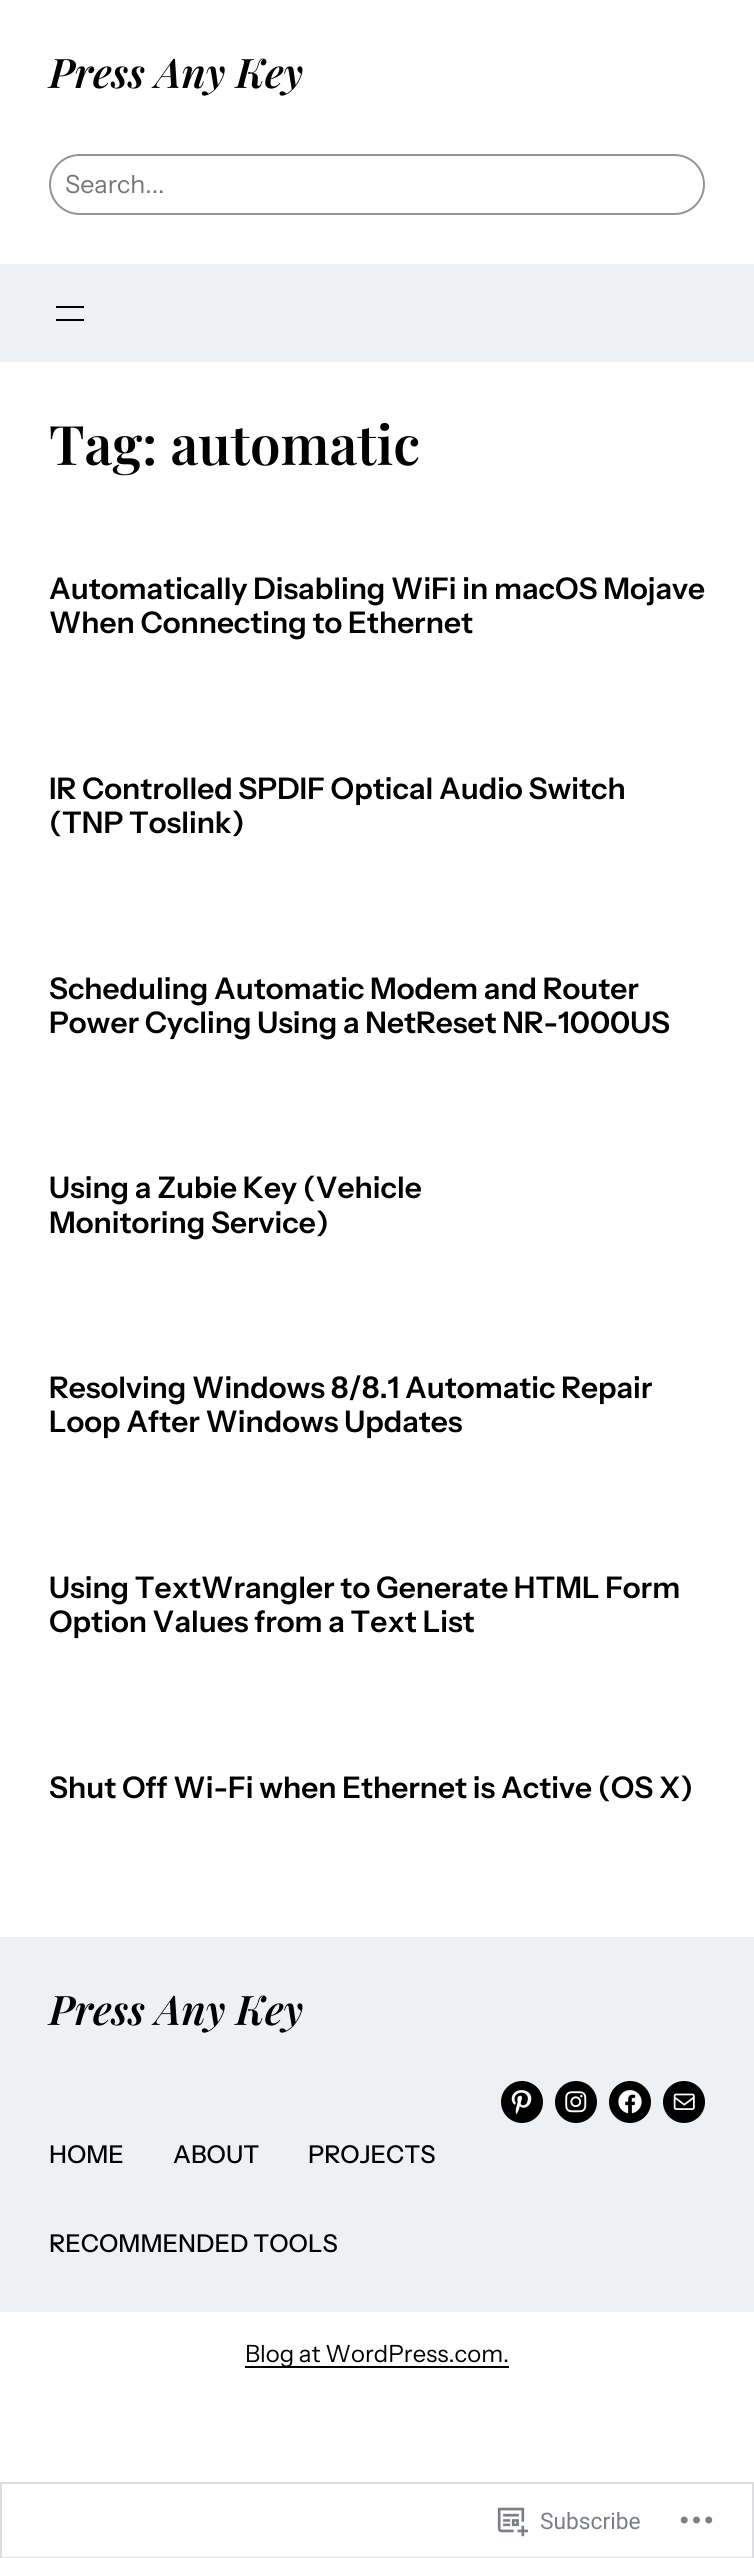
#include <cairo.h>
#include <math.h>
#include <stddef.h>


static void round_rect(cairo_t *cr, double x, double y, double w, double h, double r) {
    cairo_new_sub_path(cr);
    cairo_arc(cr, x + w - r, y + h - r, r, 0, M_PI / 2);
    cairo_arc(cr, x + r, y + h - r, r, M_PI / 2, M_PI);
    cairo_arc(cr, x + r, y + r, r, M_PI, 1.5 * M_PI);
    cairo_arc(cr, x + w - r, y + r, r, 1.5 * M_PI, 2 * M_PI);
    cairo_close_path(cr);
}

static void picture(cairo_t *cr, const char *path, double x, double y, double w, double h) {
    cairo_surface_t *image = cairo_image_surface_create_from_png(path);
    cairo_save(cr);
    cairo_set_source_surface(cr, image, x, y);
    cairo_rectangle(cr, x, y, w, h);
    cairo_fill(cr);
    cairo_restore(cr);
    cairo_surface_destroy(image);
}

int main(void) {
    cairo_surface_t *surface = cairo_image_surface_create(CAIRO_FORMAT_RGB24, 754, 2558);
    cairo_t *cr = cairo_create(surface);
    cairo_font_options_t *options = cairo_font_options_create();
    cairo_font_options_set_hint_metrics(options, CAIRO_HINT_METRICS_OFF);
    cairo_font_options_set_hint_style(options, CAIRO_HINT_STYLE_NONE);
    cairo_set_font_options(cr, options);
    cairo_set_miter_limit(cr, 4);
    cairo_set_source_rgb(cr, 1, 1, 1);
    cairo_paint(cr);
    cairo_select_font_face(cr, "Playfair Display SemiBold", CAIRO_FONT_SLANT_ITALIC, CAIRO_FONT_WEIGHT_NORMAL);
    cairo_set_font_size(cr, 40.75);
    cairo_set_source_rgb(cr, 0, 0, 0);
    cairo_move_to(cr, 49, 88);
    cairo_show_text(cr, "Press Any Key");
    round_rect(cr, 50, 155, 654, 59, 29.5);
    cairo_set_source_rgb(cr, 0.58, 0.58, 0.58);
    cairo_stroke(cr);
    cairo_select_font_face(cr, "Instrument Sans", CAIRO_FONT_SLANT_NORMAL, CAIRO_FONT_WEIGHT_NORMAL);
    cairo_set_font_size(cr, 25);
    cairo_set_source_rgb(cr, 0.459, 0.459, 0.459);
    cairo_move_to(cr, 65, 193);
    cairo_show_text(cr, "Search...");
    cairo_set_source_rgb(cr, 0.929, 0.945, 0.957);
    cairo_rectangle(cr, 0, 264, 754, 98);
    cairo_fill(cr);
    cairo_set_source_rgb(cr, 0, 0, 0);
    cairo_rectangle(cr, 56, 306, 28, 2);
    cairo_fill(cr);
    cairo_rectangle(cr, 56, 319, 28, 2);
    cairo_fill(cr);
    cairo_select_font_face(cr, "Playfair Display SemiBold", CAIRO_FONT_SLANT_NORMAL, CAIRO_FONT_WEIGHT_NORMAL);
    cairo_set_font_size(cr, 54.5);
    cairo_move_to(cr, 49, 465);
    cairo_show_text(cr, "Tag: automatic");
    cairo_select_font_face(cr, "Instrument Sans SemiBold", CAIRO_FONT_SLANT_NORMAL, CAIRO_FONT_WEIGHT_NORMAL);
    cairo_set_font_size(cr, 29.75);
    cairo_move_to(cr, 49, 599);
    cairo_show_text(cr, "Automatically Disabling WiFi in macOS Mojave");
    cairo_move_to(cr, 49, 633);
    cairo_show_text(cr, "When Connecting to Ethernet");
    cairo_move_to(cr, 49, 799);
    cairo_show_text(cr, "IR Controlled SPDIF Optical Audio Switch");
    cairo_move_to(cr, 49, 833);
    cairo_show_text(cr, "(TNP Toslink)");
    cairo_move_to(cr, 49, 999);
    cairo_show_text(cr, "Scheduling Automatic Modem and Router");
    cairo_move_to(cr, 49, 1033);
    cairo_show_text(cr, "Power Cycling Using a NetReset NR-1000US");
    cairo_move_to(cr, 49, 1198);
    cairo_show_text(cr, "Using a Zubie Key (Vehicle");
    cairo_move_to(cr, 49, 1233);
    cairo_show_text(cr, "Monitoring Service)");
    cairo_move_to(cr, 49, 1398);
    cairo_show_text(cr, "Resolving Windows 8/8.1 Automatic Repair");
    cairo_move_to(cr, 49, 1432);
    cairo_show_text(cr, "Loop After Windows Updates");
    cairo_move_to(cr, 49, 1598);
    cairo_show_text(cr, "Using TextWrangler to Generate HTML Form");
    cairo_move_to(cr, 49, 1632);
    cairo_show_text(cr, "Option Values from a Text List");
    cairo_move_to(cr, 49, 1798);
    cairo_show_text(cr, "Shut Off Wi-Fi when Ethernet is Active (OS X)");
    cairo_set_source_rgb(cr, 0.929, 0.945, 0.957);
    cairo_rectangle(cr, 0, 1937, 754, 375);
    cairo_fill(cr);
    cairo_select_font_face(cr, "Playfair Display SemiBold", CAIRO_FONT_SLANT_ITALIC, CAIRO_FONT_WEIGHT_NORMAL);
    cairo_set_font_size(cr, 40.75);
    cairo_set_source_rgb(cr, 0, 0, 0);
    cairo_move_to(cr, 49, 2025);
    cairo_show_text(cr, "Press Any Key");
    cairo_new_path(cr);
    cairo_arc(cr, 522, 2102, 21, 0, 2 * M_PI);
    cairo_fill(cr);
    picture(cr, "img1.png", 511, 2090, 21, 25);
    cairo_arc(cr, 576, 2102, 21, 0, 2 * M_PI);
    cairo_fill(cr);
    picture(cr, "img2.png", 565, 2091, 22, 22);
    cairo_arc(cr, 630, 2102, 21, 0, 2 * M_PI);
    cairo_fill(cr);
    picture(cr, "img3.png", 618, 2090, 24, 24);
    cairo_arc(cr, 684, 2102, 21, 0, 2 * M_PI);
    cairo_fill(cr);
    picture(cr, "img4.png", 673, 2093, 22, 17);
    cairo_select_font_face(cr, "Instrument Sans Medium", CAIRO_FONT_SLANT_NORMAL, CAIRO_FONT_WEIGHT_NORMAL);
    cairo_set_font_size(cr, 24.5);
    cairo_move_to(cr, 49, 2163);
    cairo_show_text(cr, "HOME");
    cairo_move_to(cr, 173, 2163);
    cairo_show_text(cr, "ABOUT");
    cairo_move_to(cr, 308, 2163);
    cairo_show_text(cr, "PROJECTS");
    cairo_move_to(cr, 49, 2252);
    cairo_show_text(cr, "RECOMMENDED TOOLS");
    cairo_rectangle(cr, 245, 2366, 264, 2);
    cairo_fill(cr);
    cairo_select_font_face(cr, "Instrument Sans", CAIRO_FONT_SLANT_NORMAL, CAIRO_FONT_WEIGHT_NORMAL);
    cairo_set_font_size(cr, 23.75);
    cairo_move_to(cr, 245, 2362);
    cairo_show_text(cr, "Blog at WordPress.com.");
    cairo_rectangle(cr, 1, 2483, 752, 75);
    cairo_set_source_rgb(cr, 0.867, 0.867, 0.875);
    cairo_stroke(cr);
    picture(cr, "img5.png", 497, 2507, 32, 30);
    cairo_select_font_face(cr, "Roboto", CAIRO_FONT_SLANT_NORMAL, CAIRO_FONT_WEIGHT_NORMAL);
    cairo_set_font_size(cr, 22.75);
    cairo_set_source_rgb(cr, 0.482, 0.498, 0.522);
    cairo_move_to(cr, 540, 2529);
    cairo_show_text(cr, "Subscribe");
    picture(cr, "img6.png", 680, 2516, 33, 8);
    cairo_surface_write_to_png(surface, "page.png");
    cairo_font_options_destroy(options);
    cairo_destroy(cr);
    cairo_surface_destroy(surface);
    return 0;
}
